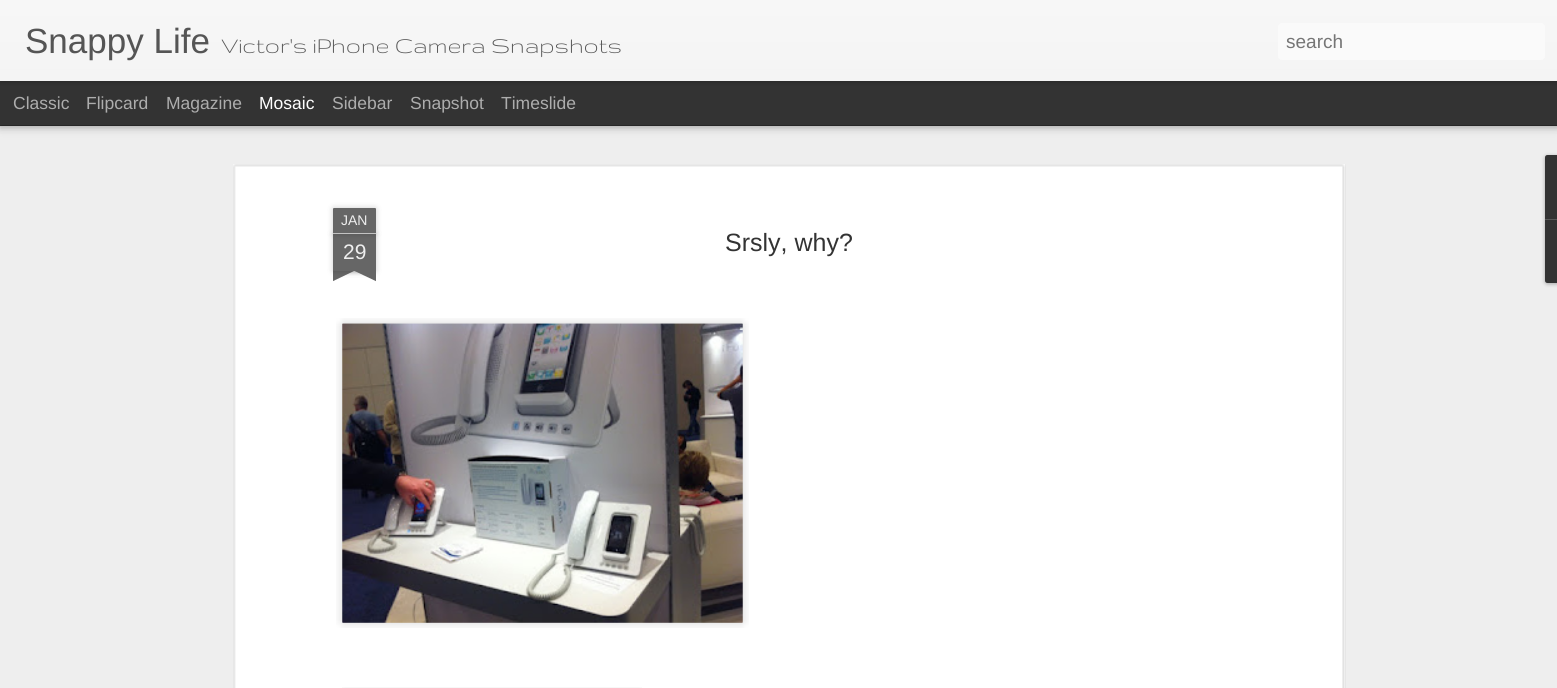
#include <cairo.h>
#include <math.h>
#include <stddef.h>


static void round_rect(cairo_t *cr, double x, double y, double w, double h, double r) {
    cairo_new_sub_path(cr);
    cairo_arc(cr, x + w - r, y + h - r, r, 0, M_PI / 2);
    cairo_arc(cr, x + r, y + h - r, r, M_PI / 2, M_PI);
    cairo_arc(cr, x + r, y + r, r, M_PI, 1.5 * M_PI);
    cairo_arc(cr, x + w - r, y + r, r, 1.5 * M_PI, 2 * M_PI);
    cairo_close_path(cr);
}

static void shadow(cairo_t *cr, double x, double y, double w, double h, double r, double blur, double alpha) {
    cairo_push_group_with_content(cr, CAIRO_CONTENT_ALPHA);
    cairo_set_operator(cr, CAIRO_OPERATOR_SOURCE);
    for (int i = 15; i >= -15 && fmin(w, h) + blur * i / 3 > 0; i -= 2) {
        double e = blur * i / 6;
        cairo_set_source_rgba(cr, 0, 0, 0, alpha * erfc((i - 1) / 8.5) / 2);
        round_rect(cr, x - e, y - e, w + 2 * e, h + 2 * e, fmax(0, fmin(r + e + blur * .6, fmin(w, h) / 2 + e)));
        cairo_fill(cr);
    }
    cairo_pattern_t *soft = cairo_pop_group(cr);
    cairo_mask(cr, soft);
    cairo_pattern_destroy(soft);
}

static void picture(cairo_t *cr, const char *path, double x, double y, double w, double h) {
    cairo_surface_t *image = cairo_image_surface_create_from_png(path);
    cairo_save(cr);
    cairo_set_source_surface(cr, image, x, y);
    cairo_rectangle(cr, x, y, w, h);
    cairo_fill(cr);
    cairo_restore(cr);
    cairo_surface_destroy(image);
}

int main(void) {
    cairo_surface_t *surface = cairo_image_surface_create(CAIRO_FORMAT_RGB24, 1557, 688);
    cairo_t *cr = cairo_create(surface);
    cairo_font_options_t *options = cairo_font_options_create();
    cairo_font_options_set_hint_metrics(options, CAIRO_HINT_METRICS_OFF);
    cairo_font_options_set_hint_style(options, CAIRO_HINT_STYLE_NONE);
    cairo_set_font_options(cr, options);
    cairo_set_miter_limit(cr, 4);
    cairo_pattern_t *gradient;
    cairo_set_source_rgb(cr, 0.2, 0.2, 0.2);
    cairo_paint(cr);
    cairo_set_source_rgb(cr, 0.933, 0.933, 0.933);
    cairo_rectangle(cr, 0, 126, 1557, 562);
    cairo_fill(cr);
    cairo_set_source_rgb(cr, 0, 0, 0);
    shadow(cr, 0, 81, 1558, 44, 0, 5, 0.5);
    cairo_set_source_rgb(cr, 0.2, 0.2, 0.2);
    cairo_rectangle(cr, 0, 81, 1557, 44);
    cairo_fill(cr);
    cairo_set_source_rgb(cr, 0, 0, 0);
    shadow(cr, 0, 0, 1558, 81, 0, 3, 0.3);
    gradient = cairo_pattern_create_linear(0, 0, 0, 81);
    cairo_pattern_add_color_stop_rgba(gradient, 0, 0.969, 0.969, 0.969, 1);
    cairo_pattern_add_color_stop_rgba(gradient, 1, 0.957, 0.957, 0.957, 1);
    cairo_set_source(cr, gradient);
    cairo_pattern_destroy(gradient);
    cairo_rectangle(cr, 0, 0, 1557, 81);
    cairo_fill(cr);
    cairo_select_font_face(cr, "Liberation Sans", CAIRO_FONT_SLANT_NORMAL, CAIRO_FONT_WEIGHT_NORMAL);
    cairo_set_font_size(cr, 35);
    cairo_set_source_rgb(cr, 0.333, 0.333, 0.333);
    cairo_move_to(cr, 25, 53);
    cairo_show_text(cr, "Snappy Life");
    cairo_select_font_face(cr, "Gruppo", CAIRO_FONT_SLANT_NORMAL, CAIRO_FONT_WEIGHT_NORMAL);
    cairo_set_font_size(cr, 25);
    cairo_move_to(cr, 221, 53);
    cairo_show_text(cr, "Victor's iPhone Camera Snapshots");
    cairo_set_source_rgb(cr, 0.98, 0.98, 0.98);
    round_rect(cr, 1278, 23, 267, 37, 4);
    cairo_fill(cr);
    cairo_select_font_face(cr, "Liberation Sans", CAIRO_FONT_SLANT_NORMAL, CAIRO_FONT_WEIGHT_NORMAL);
    cairo_set_font_size(cr, 19);
    cairo_set_source_rgb(cr, 0.459, 0.459, 0.459);
    cairo_move_to(cr, 1286, 48);
    cairo_show_text(cr, "search");
    cairo_set_font_size(cr, 17.5);
    cairo_set_source_rgb(cr, 0.678, 0.678, 0.678);
    cairo_move_to(cr, 13, 109);
    cairo_show_text(cr, "Classic");
    cairo_move_to(cr, 86, 109);
    cairo_show_text(cr, "Flipcard");
    cairo_move_to(cr, 166, 109);
    cairo_show_text(cr, "Magazine");
    cairo_set_source_rgb(cr, 1, 1, 1);
    cairo_move_to(cr, 259, 109);
    cairo_show_text(cr, "Mosaic");
    cairo_set_source_rgb(cr, 0.678, 0.678, 0.678);
    cairo_move_to(cr, 332, 109);
    cairo_show_text(cr, "Sidebar");
    cairo_move_to(cr, 410, 109);
    cairo_show_text(cr, "Snapshot");
    cairo_move_to(cr, 501, 109);
    cairo_show_text(cr, "Timeslide");
    cairo_set_source_rgb(cr, 1, 1, 1);
    cairo_rectangle(cr, 233, 164, 1112, 524);
    cairo_fill(cr);
    picture(cr, "img1.png", 233, 164, 1113, 524);
    cairo_set_source_rgb(cr, 0, 0, 0);
    shadow(cr, 333, 234, 43, 37, 0, 3, 0.2);
    cairo_set_source_rgb(cr, 0.4, 0.4, 0.4);
    cairo_rectangle(cr, 333, 234, 43, 37);
    cairo_fill(cr);
    cairo_set_source_rgb(cr, 0, 0, 0);
    shadow(cr, 333, 208, 43, 26, 1, 3, 0.2);
    cairo_set_source_rgb(cr, 0.4, 0.4, 0.4);
    cairo_new_path(cr);
    cairo_move_to(cr, 334, 208);
    cairo_line_to(cr, 375, 208);
    cairo_curve_to(cr, 375.5, 208, 376, 208.5, 376, 209);
    cairo_line_to(cr, 376, 234);
    cairo_line_to(cr, 333, 234);
    cairo_line_to(cr, 333, 209);
    cairo_curve_to(cr, 333, 208.5, 333.5, 208, 334, 208);
    cairo_close_path(cr);
    cairo_fill(cr);
    cairo_set_source_rgb(cr, 0.761, 0.761, 0.761);
    cairo_rectangle(cr, 333, 233, 43, 1);
    cairo_fill(cr);
    cairo_set_font_size(cr, 14);
    cairo_set_source_rgb(cr, 0.933, 0.933, 0.933);
    cairo_move_to(cr, 341, 225);
    cairo_show_text(cr, "JAN");
    cairo_set_font_size(cr, 21);
    cairo_move_to(cr, 343, 259);
    cairo_show_text(cr, "29");
    cairo_save(cr);
    cairo_rectangle(cr, 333, 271, 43, 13);
    cairo_clip(cr);
    cairo_set_source_rgb(cr, 0, 0, 0);
    shadow(cr, 321, 259, 63, 12, 0, 3, 0.2);
    cairo_restore(cr);
    cairo_save(cr);
    cairo_rectangle(cr, 333, 271, 43, 13);
    cairo_clip(cr);
    cairo_set_source_rgb(cr, 0.4, 0.4, 0.4);
    cairo_new_path(cr);
    cairo_move_to(cr, 322, 273);
    cairo_line_to(cr, 378, 246);
    cairo_line_to(cr, 383, 257);
    cairo_line_to(cr, 327, 284);
    cairo_close_path(cr);
    cairo_fill(cr);
    cairo_restore(cr);
    cairo_save(cr);
    cairo_rectangle(cr, 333, 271, 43, 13);
    cairo_clip(cr);
    cairo_set_source_rgb(cr, 0, 0, 0);
    shadow(cr, 325, 259, 63, 12, 0, 3, 0.2);
    cairo_restore(cr);
    cairo_save(cr);
    cairo_rectangle(cr, 333, 271, 43, 13);
    cairo_clip(cr);
    cairo_set_source_rgb(cr, 0.4, 0.4, 0.4);
    cairo_new_path(cr);
    cairo_move_to(cr, 331, 246);
    cairo_line_to(cr, 387, 273);
    cairo_line_to(cr, 382, 284);
    cairo_line_to(cr, 325, 257);
    cairo_close_path(cr);
    cairo_fill(cr);
    cairo_restore(cr);
    cairo_set_font_size(cr, 25);
    cairo_set_source_rgb(cr, 0.2, 0.2, 0.2);
    cairo_move_to(cr, 725, 251);
    cairo_show_text(cr, "Srsly, why?");
    picture(cr, "img2.png", 336, 318, 413, 310);
    picture(cr, "img3.png", 342, 323, 401, 300);
    picture(cr, "img4.png", 342, 687, 300, 1);
    cairo_set_source_rgb(cr, 0, 0, 0);
    shadow(cr, 1545, 156, 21, 128, 2.5, 2, 0.3);
    cairo_set_source_rgb(cr, 0.2, 0.2, 0.2);
    cairo_new_path(cr);
    cairo_move_to(cr, 1547.5, 155);
    cairo_line_to(cr, 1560, 155);
    cairo_line_to(cr, 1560, 219);
    cairo_line_to(cr, 1545, 219);
    cairo_line_to(cr, 1545, 157.5);
    cairo_curve_to(cr, 1545, 156, 1546, 155, 1547.5, 155);
    cairo_close_path(cr);
    cairo_fill(cr);
    cairo_new_path(cr);
    cairo_move_to(cr, 1545, 219);
    cairo_line_to(cr, 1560, 219);
    cairo_line_to(cr, 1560, 283);
    cairo_line_to(cr, 1547.5, 283);
    cairo_curve_to(cr, 1546, 283, 1545, 282, 1545, 280.5);
    cairo_close_path(cr);
    cairo_fill(cr);
    cairo_set_source_rgb(cr, 0.345, 0.345, 0.345);
    cairo_rectangle(cr, 1545, 219, 12, 1);
    cairo_fill(cr);
    cairo_surface_write_to_png(surface, "page.png");
    cairo_font_options_destroy(options);
    cairo_destroy(cr);
    cairo_surface_destroy(surface);
    return 0;
}
